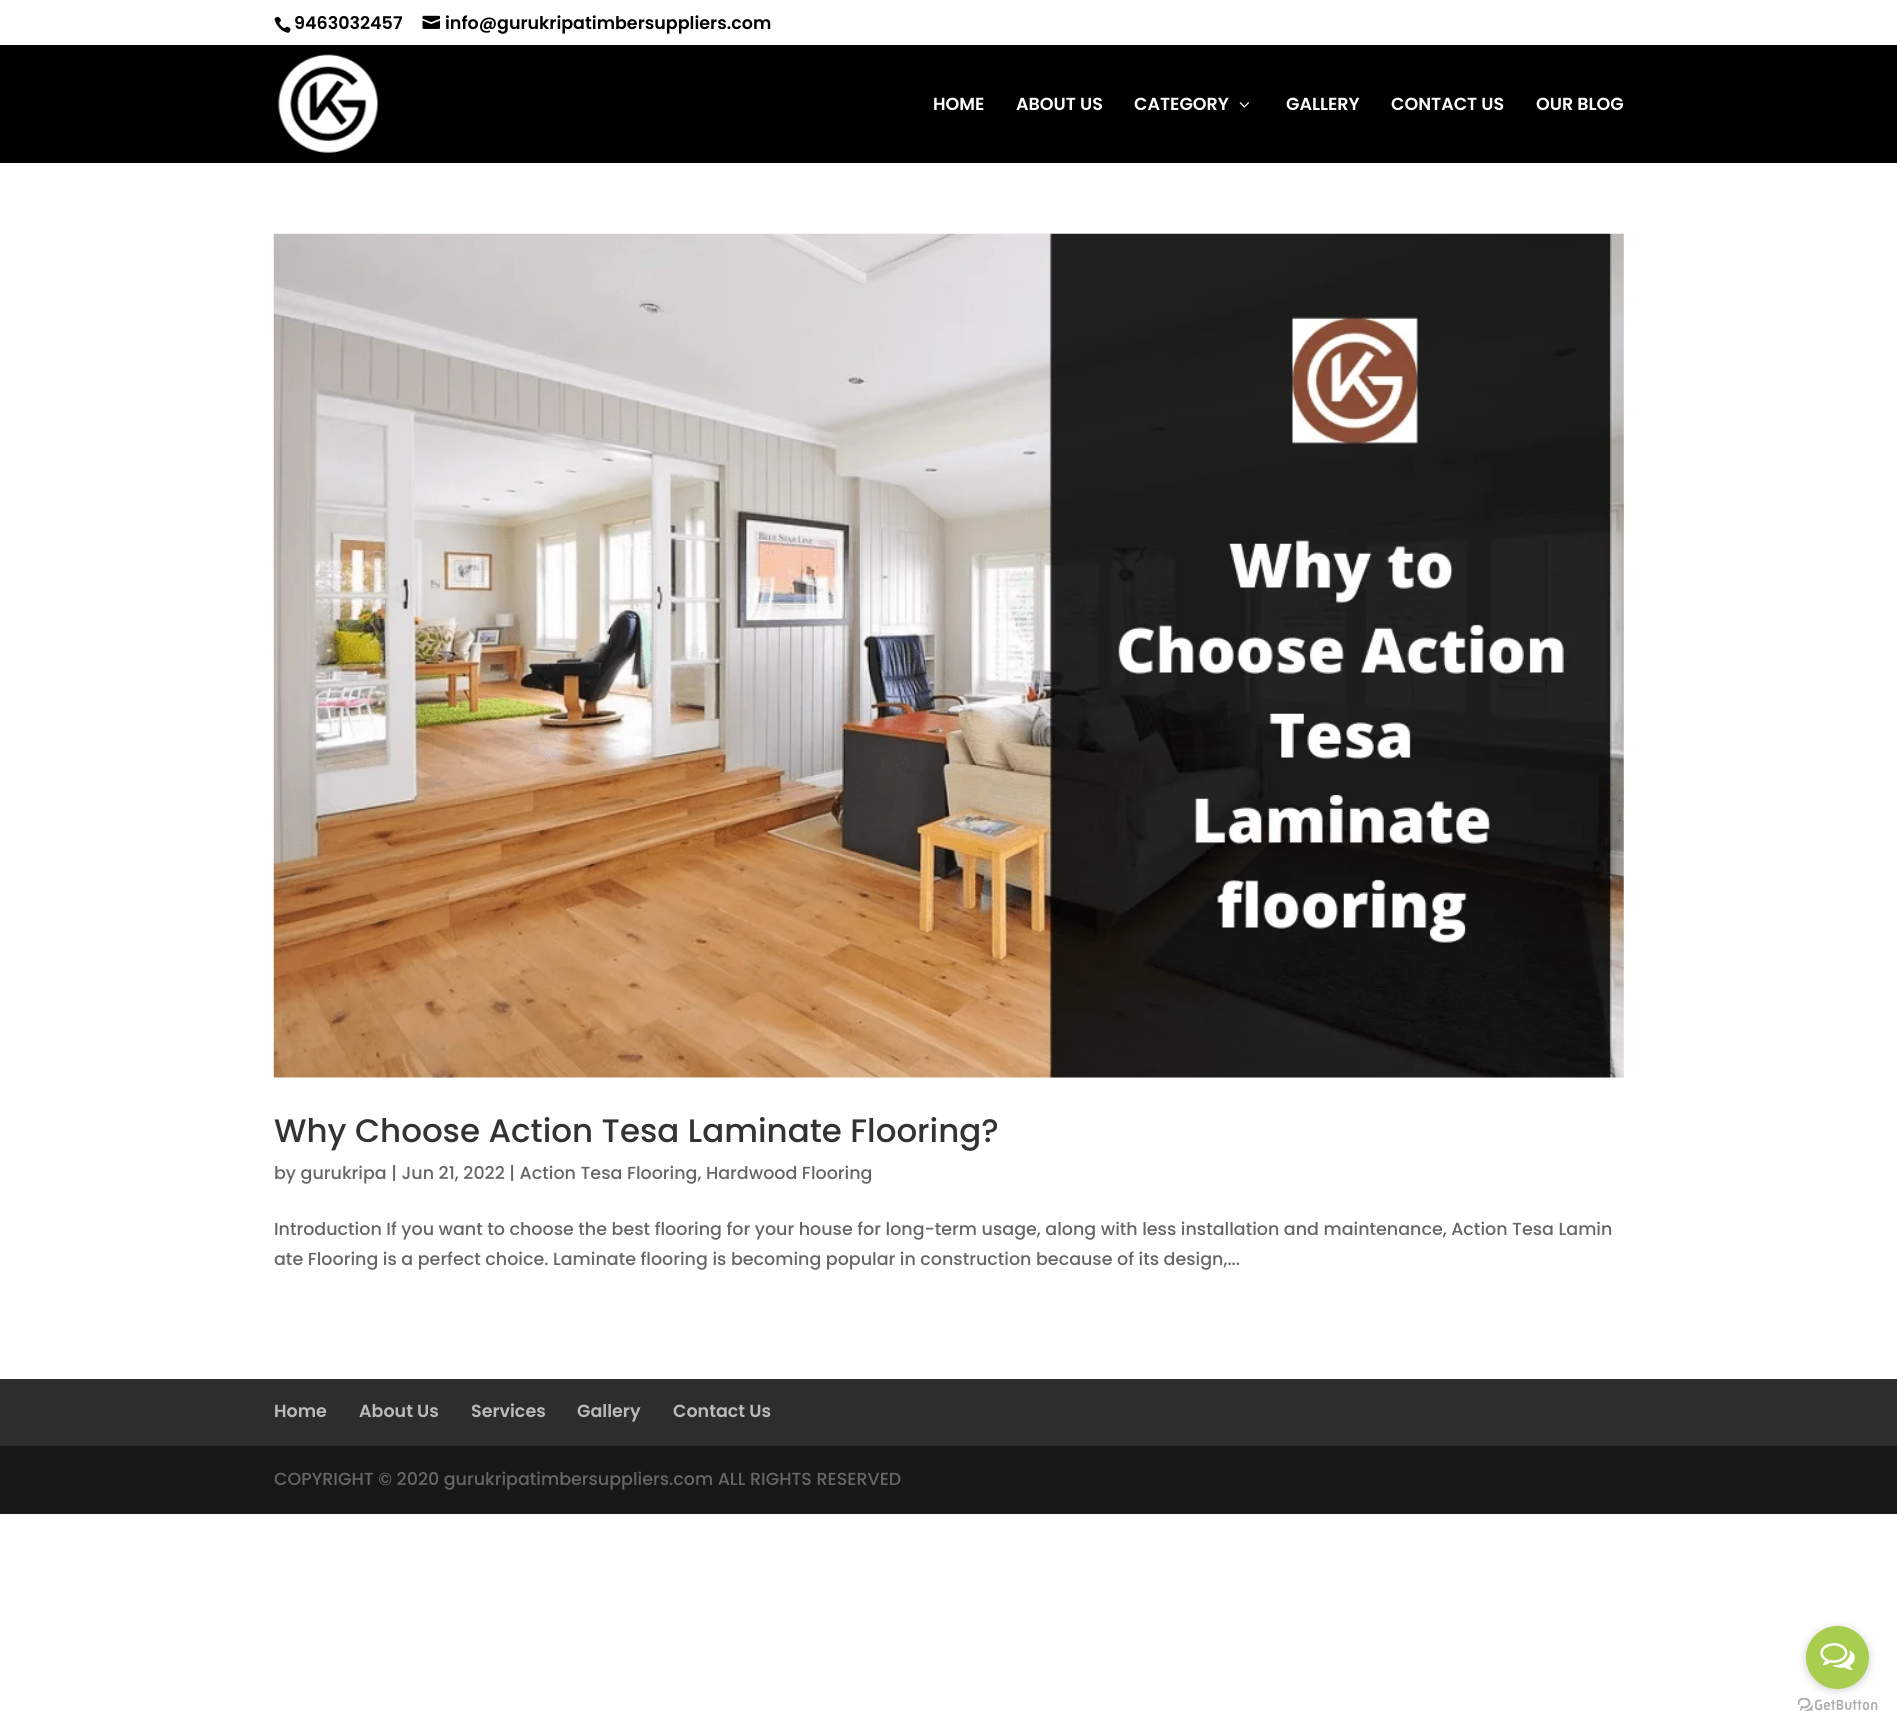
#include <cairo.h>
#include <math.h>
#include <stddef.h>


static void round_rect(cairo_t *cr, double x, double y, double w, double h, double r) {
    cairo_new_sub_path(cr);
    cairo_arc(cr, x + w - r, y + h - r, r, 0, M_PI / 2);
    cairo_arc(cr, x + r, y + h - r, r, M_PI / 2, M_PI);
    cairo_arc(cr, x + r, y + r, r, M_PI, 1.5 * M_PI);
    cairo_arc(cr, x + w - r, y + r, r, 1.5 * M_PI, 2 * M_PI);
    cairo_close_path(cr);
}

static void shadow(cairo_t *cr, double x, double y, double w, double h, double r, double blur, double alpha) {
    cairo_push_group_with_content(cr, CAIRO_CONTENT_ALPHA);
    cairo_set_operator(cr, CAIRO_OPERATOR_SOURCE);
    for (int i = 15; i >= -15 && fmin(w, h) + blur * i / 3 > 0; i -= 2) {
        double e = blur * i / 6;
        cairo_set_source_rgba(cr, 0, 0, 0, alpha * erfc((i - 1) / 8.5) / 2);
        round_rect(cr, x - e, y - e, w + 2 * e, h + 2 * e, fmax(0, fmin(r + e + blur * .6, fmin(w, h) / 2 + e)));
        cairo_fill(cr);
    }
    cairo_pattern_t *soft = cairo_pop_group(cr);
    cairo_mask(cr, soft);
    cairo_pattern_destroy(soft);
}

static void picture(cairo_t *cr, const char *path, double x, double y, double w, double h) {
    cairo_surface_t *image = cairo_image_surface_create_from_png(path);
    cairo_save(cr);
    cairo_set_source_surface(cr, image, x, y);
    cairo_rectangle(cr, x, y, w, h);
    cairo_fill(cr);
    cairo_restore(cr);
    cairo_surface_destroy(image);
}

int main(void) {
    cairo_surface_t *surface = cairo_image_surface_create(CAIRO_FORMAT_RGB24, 1897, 1731);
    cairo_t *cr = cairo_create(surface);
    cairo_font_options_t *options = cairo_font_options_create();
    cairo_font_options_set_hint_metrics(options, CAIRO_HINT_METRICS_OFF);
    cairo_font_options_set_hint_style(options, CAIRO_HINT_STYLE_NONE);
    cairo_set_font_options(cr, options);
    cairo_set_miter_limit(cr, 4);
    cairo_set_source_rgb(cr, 1, 1, 1);
    cairo_paint(cr);
    picture(cr, "img1.png", 274, 16, 17, 17);
    cairo_select_font_face(cr, "Poppins SemiBold", CAIRO_FONT_SLANT_NORMAL, CAIRO_FONT_WEIGHT_NORMAL);
    cairo_set_font_size(cr, 17.5);
    cairo_set_source_rgb(cr, 0, 0, 0);
    cairo_move_to(cr, 294, 29);
    cairo_show_text(cr, "9463032457");
    picture(cr, "img2.png", 422, 15, 18, 14);
    cairo_move_to(cr, 445, 29);
    cairo_show_text(cr, "info@gurukripatimbersuppliers.com");
    cairo_rectangle(cr, 0, 45, 1897, 118);
    cairo_fill(cr);
    picture(cr, "img3.png", 278, 54, 100, 99);
    cairo_set_source_rgb(cr, 1, 1, 1);
    cairo_move_to(cr, 933, 110);
    cairo_show_text(cr, "HOME");
    cairo_move_to(cr, 1016, 110);
    cairo_show_text(cr, "ABOUT US");
    cairo_move_to(cr, 1134, 110);
    cairo_show_text(cr, "CATEGORY");
    picture(cr, "img4.png", 1239, 102, 10, 6);
    cairo_move_to(cr, 1286, 110);
    cairo_show_text(cr, "GALLERY");
    cairo_move_to(cr, 1391, 110);
    cairo_show_text(cr, "CONTACT US");
    cairo_move_to(cr, 1536, 110);
    cairo_show_text(cr, "OUR BLOG");
    picture(cr, "img5.png", 273, 233, 1351, 845);
    cairo_select_font_face(cr, "Poppins Medium", CAIRO_FONT_SLANT_NORMAL, CAIRO_FONT_WEIGHT_NORMAL);
    cairo_set_font_size(cr, 32.5);
    cairo_set_source_rgb(cr, 0.2, 0.2, 0.2);
    cairo_move_to(cr, 274, 1142);
    cairo_show_text(cr, "Why Choose Action Tesa Laminate Flooring?");
    cairo_set_font_size(cr, 17.5);
    cairo_set_source_rgb(cr, 0.4, 0.4, 0.4);
    cairo_move_to(cr, 274, 1179);
    cairo_show_text(cr, "by gurukripa | Jun 21, 2022 | Action Tesa Flooring, Hardwood Flooring");
    cairo_move_to(cr, 274, 1235);
    cairo_show_text(cr, "Introduction If you want to choose the best flooring for your house for long-term usage, along with less installation and maintenance, Action Tesa Lamin");
    cairo_move_to(cr, 274, 1265);
    cairo_show_text(cr, "ate Flooring is a perfect choice. Laminate flooring is becoming popular in construction because of its design,...");
    cairo_set_source_rgb(cr, 0.176, 0.176, 0.176);
    cairo_rectangle(cr, 0, 1379, 1897, 67);
    cairo_fill(cr);
    cairo_select_font_face(cr, "Poppins SemiBold", CAIRO_FONT_SLANT_NORMAL, CAIRO_FONT_WEIGHT_NORMAL);
    cairo_set_source_rgb(cr, 0.733, 0.733, 0.733);
    cairo_move_to(cr, 274, 1417);
    cairo_show_text(cr, "Home");
    cairo_move_to(cr, 359, 1417);
    cairo_show_text(cr, "About Us");
    cairo_move_to(cr, 471, 1417);
    cairo_show_text(cr, "Services");
    cairo_move_to(cr, 577, 1417);
    cairo_show_text(cr, "Gallery");
    cairo_move_to(cr, 673, 1417);
    cairo_show_text(cr, "Contact Us");
    cairo_set_source_rgb(cr, 0.09, 0.09, 0.09);
    cairo_rectangle(cr, 0, 1446, 1897, 68);
    cairo_fill(cr);
    cairo_select_font_face(cr, "Poppins Medium", CAIRO_FONT_SLANT_NORMAL, CAIRO_FONT_WEIGHT_NORMAL);
    cairo_set_source_rgb(cr, 0.4, 0.4, 0.4);
    cairo_move_to(cr, 274, 1485);
    cairo_show_text(cr, "COPYRIGHT © 2020 gurukripatimbersuppliers.com ALL RIGHTS RESERVED");
    picture(cr, "img7.png", 1798, 1698, 80, 13);
    cairo_set_source_rgb(cr, 0.533, 0.533, 0.533);
    shadow(cr, 1806, 1628, 63, 62, 31, 4.5, 0.4);
    cairo_set_source_rgb(cr, 0.659, 0.808, 0.314);
    cairo_arc(cr, 1837.5, 1657.5, 31.5, 0, 2 * M_PI);
    cairo_fill(cr);
    picture(cr, "img6.png", 1820, 1643, 35, 28);
    cairo_surface_write_to_png(surface, "page.png");
    cairo_font_options_destroy(options);
    cairo_destroy(cr);
    cairo_surface_destroy(surface);
    return 0;
}
